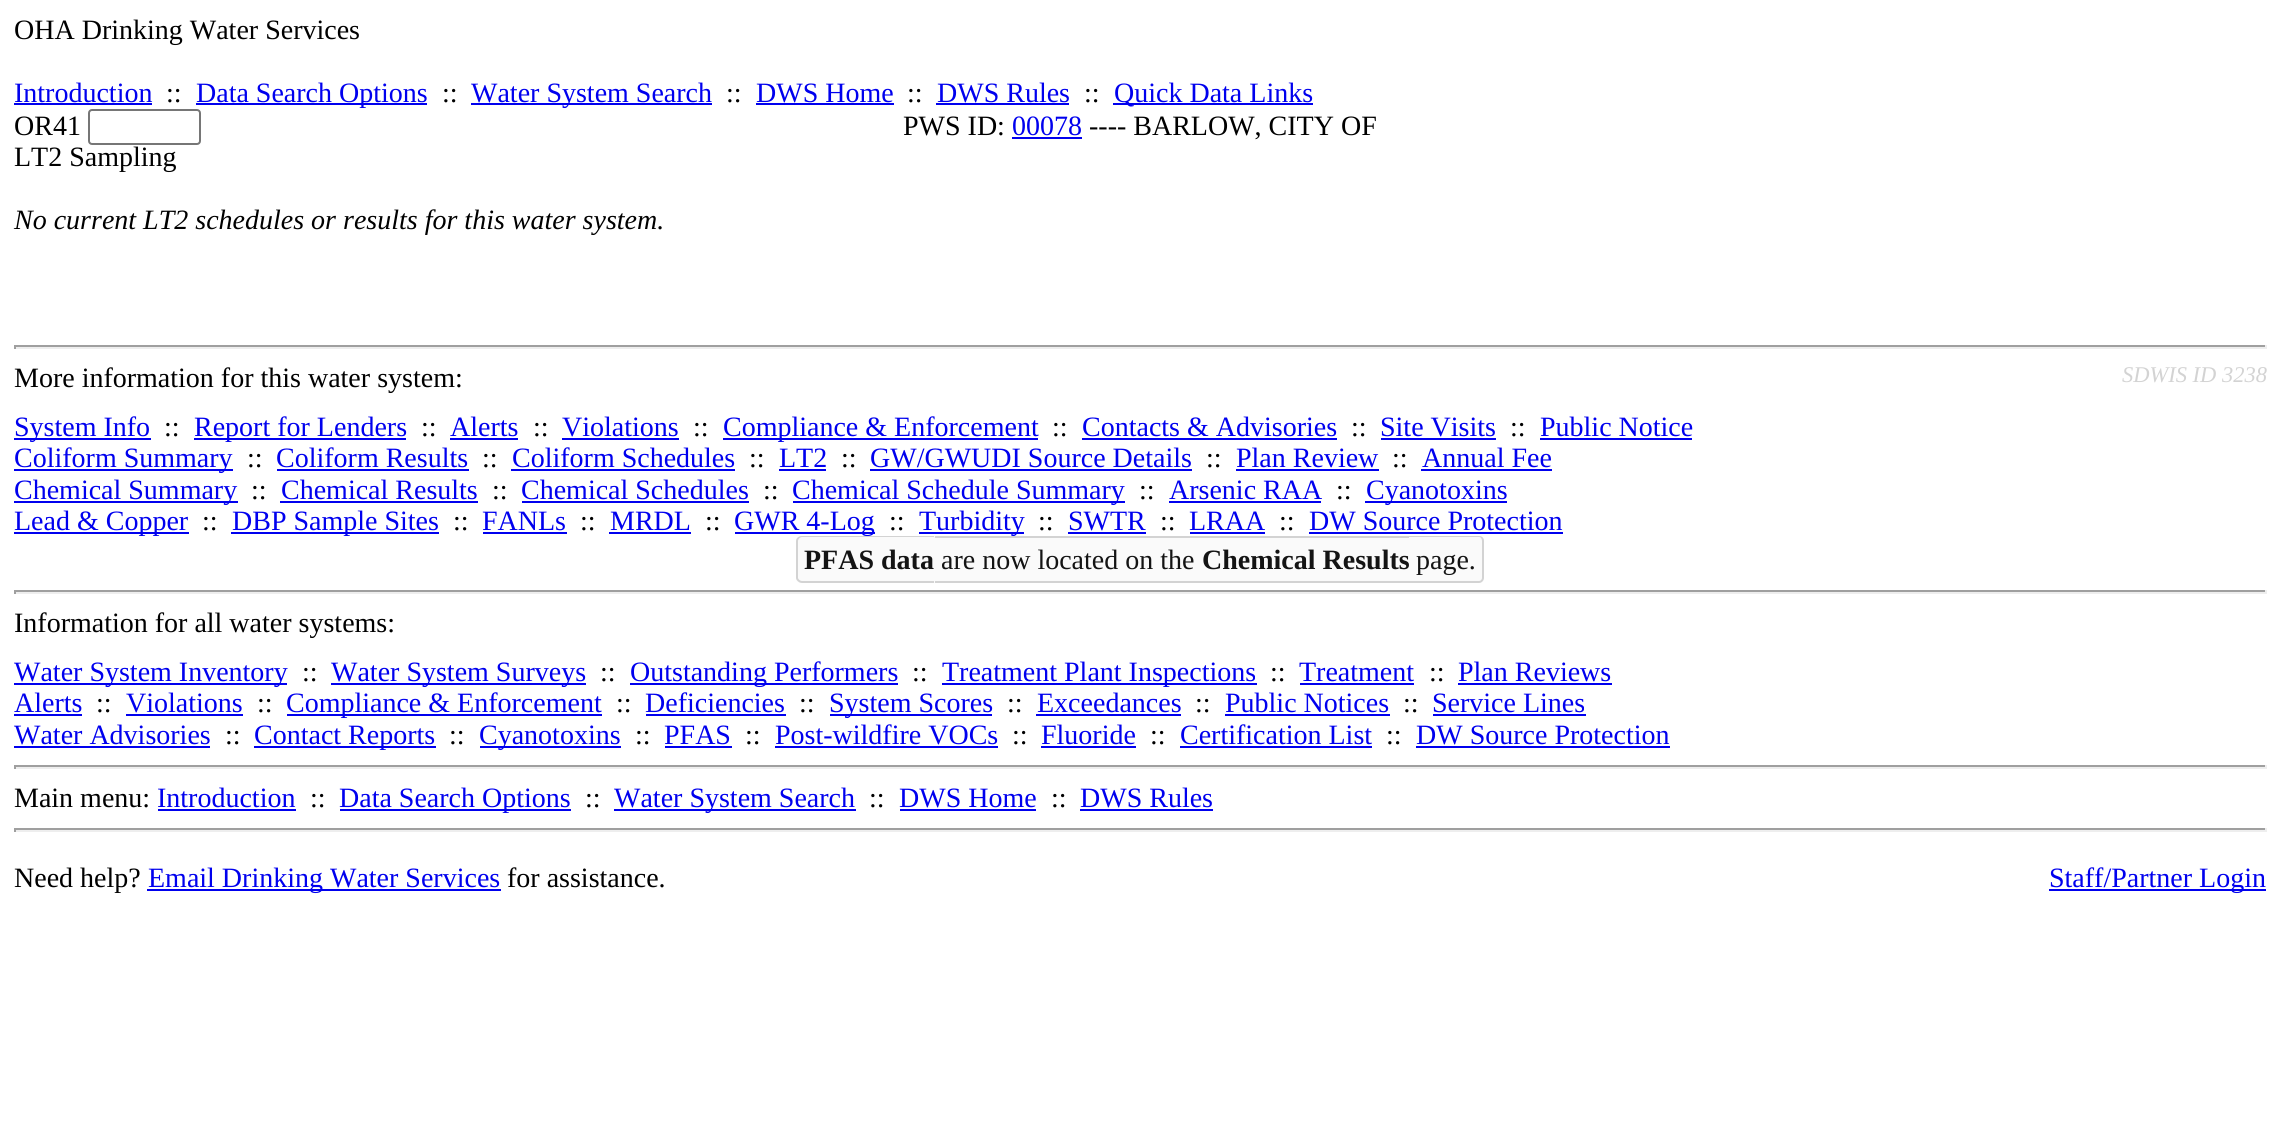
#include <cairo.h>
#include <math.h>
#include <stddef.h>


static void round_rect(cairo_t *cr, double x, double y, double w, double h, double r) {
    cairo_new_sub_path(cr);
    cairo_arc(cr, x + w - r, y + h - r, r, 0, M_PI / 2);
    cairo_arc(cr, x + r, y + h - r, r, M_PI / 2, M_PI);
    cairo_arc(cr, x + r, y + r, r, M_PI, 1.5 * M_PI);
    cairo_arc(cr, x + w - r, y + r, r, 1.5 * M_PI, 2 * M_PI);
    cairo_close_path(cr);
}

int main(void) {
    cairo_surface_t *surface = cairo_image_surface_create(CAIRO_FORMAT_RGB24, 2280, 1146);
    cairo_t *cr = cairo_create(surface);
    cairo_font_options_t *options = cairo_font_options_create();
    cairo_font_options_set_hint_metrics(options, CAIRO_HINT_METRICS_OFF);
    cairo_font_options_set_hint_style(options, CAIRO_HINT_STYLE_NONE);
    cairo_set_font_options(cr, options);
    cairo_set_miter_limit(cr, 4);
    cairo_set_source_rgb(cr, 1, 1, 1);
    cairo_paint(cr);
    cairo_select_font_face(cr, "Liberation Serif", CAIRO_FONT_SLANT_NORMAL, CAIRO_FONT_WEIGHT_NORMAL);
    cairo_set_font_size(cr, 28);
    cairo_set_source_rgb(cr, 0, 0, 0);
    cairo_move_to(cr, 14, 39);
    cairo_show_text(cr, "OHA Drinking Water Services");
    cairo_set_source_rgb(cr, 0, 0, 0.933);
    cairo_move_to(cr, 14, 102);
    cairo_show_text(cr, "Introduction");
    cairo_rectangle(cr, 14, 103, 138, 2);
    cairo_fill(cr);
    cairo_set_source_rgb(cr, 0, 0, 0);
    cairo_move_to(cr, 166, 102);
    cairo_show_text(cr, "::");
    cairo_set_source_rgb(cr, 0, 0, 0.933);
    cairo_rectangle(cr, 196, 103, 231, 2);
    cairo_fill(cr);
    cairo_move_to(cr, 196, 102);
    cairo_show_text(cr, "Data Search Options");
    cairo_set_source_rgb(cr, 0, 0, 0);
    cairo_move_to(cr, 442, 102);
    cairo_show_text(cr, "::");
    cairo_set_source_rgb(cr, 0, 0, 0.933);
    cairo_rectangle(cr, 471, 103, 241, 2);
    cairo_fill(cr);
    cairo_move_to(cr, 471, 102);
    cairo_show_text(cr, "Water System Search");
    cairo_set_source_rgb(cr, 0, 0, 0);
    cairo_move_to(cr, 726, 102);
    cairo_show_text(cr, "::");
    cairo_set_source_rgb(cr, 0, 0, 0.933);
    cairo_move_to(cr, 756, 102);
    cairo_show_text(cr, "DWS Home");
    cairo_rectangle(cr, 756, 103, 138, 2);
    cairo_fill(cr);
    cairo_set_source_rgb(cr, 0, 0, 0);
    cairo_move_to(cr, 907, 102);
    cairo_show_text(cr, "::");
    cairo_set_source_rgb(cr, 0, 0, 0.933);
    cairo_move_to(cr, 937, 102);
    cairo_show_text(cr, "DWS Rules");
    cairo_rectangle(cr, 936, 103, 133, 2);
    cairo_fill(cr);
    cairo_set_source_rgb(cr, 0, 0, 0);
    cairo_move_to(cr, 1084, 102);
    cairo_show_text(cr, "::");
    cairo_set_source_rgb(cr, 0, 0, 0.933);
    cairo_rectangle(cr, 1113, 103, 200, 2);
    cairo_fill(cr);
    cairo_move_to(cr, 1114, 102);
    cairo_show_text(cr, "Quick Data Links");
    cairo_set_source_rgb(cr, 0, 0, 0);
    cairo_move_to(cr, 14, 135);
    cairo_show_text(cr, "OR41");
    round_rect(cr, 89, 110, 111, 34, 3);
    cairo_set_source_rgb(cr, 0.463, 0.463, 0.463);
    cairo_stroke(cr);
    cairo_set_source_rgb(cr, 0, 0, 0);
    cairo_move_to(cr, 903, 135);
    cairo_show_text(cr, "PWS ID:");
    cairo_set_source_rgb(cr, 0, 0, 0.933);
    cairo_move_to(cr, 1012, 135);
    cairo_show_text(cr, "00078");
    cairo_rectangle(cr, 1012, 137, 70, 2);
    cairo_fill(cr);
    cairo_set_source_rgb(cr, 0, 0, 0);
    cairo_move_to(cr, 1089, 135);
    cairo_show_text(cr, "---- BARLOW, CITY OF");
    cairo_move_to(cr, 14, 166);
    cairo_show_text(cr, "LT2 Sampling");
    cairo_select_font_face(cr, "Liberation Serif", CAIRO_FONT_SLANT_ITALIC, CAIRO_FONT_WEIGHT_NORMAL);
    cairo_move_to(cr, 14, 229);
    cairo_show_text(cr, "No current LT2 schedules or results for this water system.");
    cairo_set_source_rgb(cr, 0.624, 0.624, 0.624);
    cairo_rectangle(cr, 14, 345, 2252, 2);
    cairo_fill(cr);
    cairo_set_source_rgb(cr, 0.933, 0.933, 0.933);
    cairo_rectangle(cr, 2265, 345, 2, 4);
    cairo_fill(cr);
    cairo_rectangle(cr, 14, 347, 2252, 2);
    cairo_fill(cr);
    cairo_set_source_rgb(cr, 0.624, 0.624, 0.624);
    cairo_rectangle(cr, 14, 345, 2, 4);
    cairo_fill(cr);
    cairo_select_font_face(cr, "Liberation Serif", CAIRO_FONT_SLANT_NORMAL, CAIRO_FONT_WEIGHT_NORMAL);
    cairo_set_source_rgb(cr, 0, 0, 0);
    cairo_move_to(cr, 14, 387);
    cairo_show_text(cr, "More information for this water system:");
    cairo_select_font_face(cr, "Liberation Serif", CAIRO_FONT_SLANT_ITALIC, CAIRO_FONT_WEIGHT_NORMAL);
    cairo_set_font_size(cr, 22.5);
    cairo_set_source_rgb(cr, 0.827, 0.827, 0.827);
    cairo_move_to(cr, 2122, 382);
    cairo_show_text(cr, "SDWIS ID 3238");
    cairo_set_source_rgb(cr, 0, 0, 0.933);
    cairo_rectangle(cr, 14, 438, 137, 2);
    cairo_fill(cr);
    cairo_select_font_face(cr, "Liberation Serif", CAIRO_FONT_SLANT_NORMAL, CAIRO_FONT_WEIGHT_NORMAL);
    cairo_set_font_size(cr, 28);
    cairo_move_to(cr, 14, 436);
    cairo_show_text(cr, "System Info");
    cairo_set_source_rgb(cr, 0, 0, 0);
    cairo_move_to(cr, 164, 436);
    cairo_show_text(cr, "::");
    cairo_set_source_rgb(cr, 0, 0, 0.933);
    cairo_rectangle(cr, 194, 438, 212, 2);
    cairo_fill(cr);
    cairo_move_to(cr, 194, 436);
    cairo_show_text(cr, "Report for Lenders");
    cairo_set_source_rgb(cr, 0, 0, 0);
    cairo_move_to(cr, 421, 436);
    cairo_show_text(cr, "::");
    cairo_set_source_rgb(cr, 0, 0, 0.933);
    cairo_move_to(cr, 450, 436);
    cairo_show_text(cr, "Alerts");
    cairo_rectangle(cr, 450, 438, 68, 2);
    cairo_fill(cr);
    cairo_set_source_rgb(cr, 0, 0, 0);
    cairo_move_to(cr, 533, 436);
    cairo_show_text(cr, "::");
    cairo_set_source_rgb(cr, 0, 0, 0.933);
    cairo_move_to(cr, 562, 436);
    cairo_show_text(cr, "Violations");
    cairo_rectangle(cr, 562, 438, 117, 2);
    cairo_fill(cr);
    cairo_set_source_rgb(cr, 0, 0, 0);
    cairo_move_to(cr, 693, 436);
    cairo_show_text(cr, "::");
    cairo_set_source_rgb(cr, 0, 0, 0.933);
    cairo_rectangle(cr, 723, 438, 315, 2);
    cairo_fill(cr);
    cairo_move_to(cr, 723, 436);
    cairo_show_text(cr, "Compliance & Enforcement");
    cairo_set_source_rgb(cr, 0, 0, 0);
    cairo_move_to(cr, 1052, 436);
    cairo_show_text(cr, "::");
    cairo_set_source_rgb(cr, 0, 0, 0.933);
    cairo_move_to(cr, 1082, 436);
    cairo_show_text(cr, "Contacts & Advisories");
    cairo_rectangle(cr, 1082, 438, 255, 2);
    cairo_fill(cr);
    cairo_set_source_rgb(cr, 0, 0, 0);
    cairo_move_to(cr, 1351, 436);
    cairo_show_text(cr, "::");
    cairo_set_source_rgb(cr, 0, 0, 0.933);
    cairo_move_to(cr, 1380, 436);
    cairo_show_text(cr, "Site Visits");
    cairo_rectangle(cr, 1381, 438, 115, 2);
    cairo_fill(cr);
    cairo_set_source_rgb(cr, 0, 0, 0);
    cairo_move_to(cr, 1510, 436);
    cairo_show_text(cr, "::");
    cairo_set_source_rgb(cr, 0, 0, 0.933);
    cairo_move_to(cr, 1540, 436);
    cairo_show_text(cr, "Public Notice");
    cairo_rectangle(cr, 1540, 438, 152, 2);
    cairo_fill(cr);
    cairo_rectangle(cr, 14, 469, 219, 2);
    cairo_fill(cr);
    cairo_move_to(cr, 14, 467);
    cairo_show_text(cr, "Coliform Summary");
    cairo_set_source_rgb(cr, 0, 0, 0);
    cairo_move_to(cr, 247, 467);
    cairo_show_text(cr, "::");
    cairo_set_source_rgb(cr, 0, 0, 0.933);
    cairo_move_to(cr, 276, 467);
    cairo_show_text(cr, "Coliform Results");
    cairo_rectangle(cr, 277, 469, 192, 2);
    cairo_fill(cr);
    cairo_set_source_rgb(cr, 0, 0, 0);
    cairo_move_to(cr, 482, 467);
    cairo_show_text(cr, "::");
    cairo_set_source_rgb(cr, 0, 0, 0.933);
    cairo_move_to(cr, 512, 467);
    cairo_show_text(cr, "Coliform Schedules");
    cairo_rectangle(cr, 511, 469, 224, 2);
    cairo_fill(cr);
    cairo_set_source_rgb(cr, 0, 0, 0);
    cairo_move_to(cr, 749, 467);
    cairo_show_text(cr, "::");
    cairo_set_source_rgb(cr, 0, 0, 0.933);
    cairo_move_to(cr, 779, 467);
    cairo_show_text(cr, "LT2");
    cairo_rectangle(cr, 779, 469, 47, 2);
    cairo_fill(cr);
    cairo_set_source_rgb(cr, 0, 0, 0);
    cairo_move_to(cr, 841, 467);
    cairo_show_text(cr, "::");
    cairo_set_source_rgb(cr, 0, 0, 0.933);
    cairo_move_to(cr, 870, 467);
    cairo_show_text(cr, "GW/GWUDI Source Details");
    cairo_rectangle(cr, 870, 469, 322, 2);
    cairo_fill(cr);
    cairo_set_source_rgb(cr, 0, 0, 0);
    cairo_move_to(cr, 1206, 467);
    cairo_show_text(cr, "::");
    cairo_set_source_rgb(cr, 0, 0, 0.933);
    cairo_move_to(cr, 1236, 467);
    cairo_show_text(cr, "Plan Review");
    cairo_rectangle(cr, 1236, 469, 143, 2);
    cairo_fill(cr);
    cairo_set_source_rgb(cr, 0, 0, 0);
    cairo_move_to(cr, 1392, 467);
    cairo_show_text(cr, "::");
    cairo_set_source_rgb(cr, 0, 0, 0.933);
    cairo_move_to(cr, 1422, 467);
    cairo_show_text(cr, "Annual Fee");
    cairo_rectangle(cr, 1421, 469, 131, 2);
    cairo_fill(cr);
    cairo_rectangle(cr, 14, 501, 224, 2);
    cairo_fill(cr);
    cairo_move_to(cr, 14, 499);
    cairo_show_text(cr, "Chemical Summary");
    cairo_set_source_rgb(cr, 0, 0, 0);
    cairo_move_to(cr, 251, 499);
    cairo_show_text(cr, "::");
    cairo_set_source_rgb(cr, 0, 0, 0.933);
    cairo_move_to(cr, 281, 499);
    cairo_show_text(cr, "Chemical Results");
    cairo_rectangle(cr, 280, 501, 198, 2);
    cairo_fill(cr);
    cairo_set_source_rgb(cr, 0, 0, 0);
    cairo_move_to(cr, 492, 499);
    cairo_show_text(cr, "::");
    cairo_set_source_rgb(cr, 0, 0, 0.933);
    cairo_move_to(cr, 521, 499);
    cairo_show_text(cr, "Chemical Schedules");
    cairo_rectangle(cr, 522, 501, 227, 2);
    cairo_fill(cr);
    cairo_set_source_rgb(cr, 0, 0, 0);
    cairo_move_to(cr, 763, 499);
    cairo_show_text(cr, "::");
    cairo_set_source_rgb(cr, 0, 0, 0.933);
    cairo_rectangle(cr, 793, 501, 332, 2);
    cairo_fill(cr);
    cairo_move_to(cr, 792, 499);
    cairo_show_text(cr, "Chemical Schedule Summary");
    cairo_set_source_rgb(cr, 0, 0, 0);
    cairo_move_to(cr, 1139, 499);
    cairo_show_text(cr, "::");
    cairo_set_source_rgb(cr, 0, 0, 0.933);
    cairo_move_to(cr, 1169, 499);
    cairo_show_text(cr, "Arsenic RAA");
    cairo_rectangle(cr, 1169, 501, 152, 2);
    cairo_fill(cr);
    cairo_set_source_rgb(cr, 0, 0, 0);
    cairo_move_to(cr, 1336, 499);
    cairo_show_text(cr, "::");
    cairo_set_source_rgb(cr, 0, 0, 0.933);
    cairo_rectangle(cr, 1365, 501, 142, 2);
    cairo_fill(cr);
    cairo_move_to(cr, 1366, 499);
    cairo_show_text(cr, "Cyanotoxins");
    cairo_rectangle(cr, 14, 532, 175, 2);
    cairo_fill(cr);
    cairo_move_to(cr, 14, 530);
    cairo_show_text(cr, "Lead & Copper");
    cairo_set_source_rgb(cr, 0, 0, 0);
    cairo_move_to(cr, 202, 530);
    cairo_show_text(cr, "::");
    cairo_set_source_rgb(cr, 0, 0, 0.933);
    cairo_rectangle(cr, 231, 532, 208, 2);
    cairo_fill(cr);
    cairo_move_to(cr, 232, 530);
    cairo_show_text(cr, "DBP Sample Sites");
    cairo_set_source_rgb(cr, 0, 0, 0);
    cairo_move_to(cr, 453, 530);
    cairo_show_text(cr, "::");
    cairo_set_source_rgb(cr, 0, 0, 0.933);
    cairo_move_to(cr, 482, 530);
    cairo_show_text(cr, "FANLs");
    cairo_rectangle(cr, 483, 532, 84, 2);
    cairo_fill(cr);
    cairo_set_source_rgb(cr, 0, 0, 0);
    cairo_move_to(cr, 580, 530);
    cairo_show_text(cr, "::");
    cairo_set_source_rgb(cr, 0, 0, 0.933);
    cairo_move_to(cr, 610, 530);
    cairo_show_text(cr, "MRDL");
    cairo_rectangle(cr, 609, 532, 82, 2);
    cairo_fill(cr);
    cairo_set_source_rgb(cr, 0, 0, 0);
    cairo_move_to(cr, 705, 530);
    cairo_show_text(cr, "::");
    cairo_set_source_rgb(cr, 0, 0, 0.933);
    cairo_rectangle(cr, 735, 532, 140, 2);
    cairo_fill(cr);
    cairo_move_to(cr, 734, 530);
    cairo_show_text(cr, "GWR 4-Log");
    cairo_set_source_rgb(cr, 0, 0, 0);
    cairo_move_to(cr, 889, 530);
    cairo_show_text(cr, "::");
    cairo_set_source_rgb(cr, 0, 0, 0.933);
    cairo_rectangle(cr, 919, 532, 105, 2);
    cairo_fill(cr);
    cairo_move_to(cr, 919, 530);
    cairo_show_text(cr, "Turbidity");
    cairo_set_source_rgb(cr, 0, 0, 0);
    cairo_move_to(cr, 1038, 530);
    cairo_show_text(cr, "::");
    cairo_set_source_rgb(cr, 0, 0, 0.933);
    cairo_move_to(cr, 1068, 530);
    cairo_show_text(cr, "SWTR");
    cairo_rectangle(cr, 1068, 532, 78, 2);
    cairo_fill(cr);
    cairo_set_source_rgb(cr, 0, 0, 0);
    cairo_move_to(cr, 1160, 530);
    cairo_show_text(cr, "::");
    cairo_set_source_rgb(cr, 0, 0, 0.933);
    cairo_move_to(cr, 1189, 530);
    cairo_show_text(cr, "LRAA");
    cairo_rectangle(cr, 1190, 532, 75, 2);
    cairo_fill(cr);
    cairo_set_source_rgb(cr, 0, 0, 0);
    cairo_move_to(cr, 1279, 530);
    cairo_show_text(cr, "::");
    cairo_set_source_rgb(cr, 0, 0, 0.933);
    cairo_move_to(cr, 1309, 530);
    cairo_show_text(cr, "DW Source Protection");
    cairo_rectangle(cr, 1309, 532, 254, 2);
    cairo_fill(cr);
    cairo_set_source_rgb(cr, 0.98, 0.98, 0.98);
    cairo_new_path(cr);
    cairo_move_to(cr, 801, 536);
    cairo_line_to(cr, 935, 536);
    cairo_line_to(cr, 935, 583);
    cairo_line_to(cr, 801, 583);
    cairo_curve_to(cr, 798, 583, 796, 581, 796, 578);
    cairo_line_to(cr, 796, 541);
    cairo_curve_to(cr, 796, 538, 798, 536, 801, 536);
    cairo_close_path(cr);
    cairo_fill(cr);
    cairo_set_source_rgb(cr, 0.827, 0.827, 0.827);
    cairo_set_fill_rule(cr, CAIRO_FILL_RULE_EVEN_ODD);
    cairo_new_path(cr);
    cairo_move_to(cr, 802, 536);
    cairo_line_to(cr, 934, 536);
    cairo_line_to(cr, 934, 583);
    cairo_line_to(cr, 802, 583);
    cairo_curve_to(cr, 799, 583, 796, 580, 796, 578);
    cairo_line_to(cr, 796, 541);
    cairo_curve_to(cr, 796, 538, 799, 536, 802, 536);
    cairo_close_path(cr);
    cairo_move_to(cr, 802, 537);
    cairo_line_to(cr, 934, 537);
    cairo_line_to(cr, 934, 581);
    cairo_line_to(cr, 802, 581);
    cairo_curve_to(cr, 800, 581, 798, 579, 798, 578);
    cairo_line_to(cr, 798, 541);
    cairo_curve_to(cr, 798, 539, 800, 537, 802, 537);
    cairo_close_path(cr);
    cairo_fill(cr);
    cairo_select_font_face(cr, "Liberation Serif", CAIRO_FONT_SLANT_NORMAL, CAIRO_FONT_WEIGHT_BOLD);
    cairo_set_source_rgb(cr, 0.082, 0.082, 0.082);
    cairo_move_to(cr, 804, 569);
    cairo_show_text(cr, "PFAS data");
    cairo_set_source_rgb(cr, 0.98, 0.98, 0.98);
    cairo_rectangle(cr, 935, 538, 474, 43);
    cairo_fill(cr);
    cairo_select_font_face(cr, "Liberation Serif", CAIRO_FONT_SLANT_NORMAL, CAIRO_FONT_WEIGHT_NORMAL);
    cairo_set_source_rgb(cr, 0.082, 0.082, 0.082);
    cairo_move_to(cr, 941, 569);
    cairo_show_text(cr, "are now located on the");
    cairo_set_source_rgb(cr, 0.827, 0.827, 0.827);
    cairo_rectangle(cr, 935, 536, 474, 2);
    cairo_fill(cr);
    cairo_select_font_face(cr, "Liberation Serif", CAIRO_FONT_SLANT_NORMAL, CAIRO_FONT_WEIGHT_BOLD);
    cairo_set_source_rgb(cr, 0.082, 0.082, 0.082);
    cairo_move_to(cr, 1202, 569);
    cairo_show_text(cr, "Chemical Results");
    cairo_set_source_rgb(cr, 0.98, 0.98, 0.98);
    cairo_new_path(cr);
    cairo_move_to(cr, 1409, 536);
    cairo_line_to(cr, 1479, 536);
    cairo_curve_to(cr, 1482, 536, 1484, 538, 1484, 541);
    cairo_line_to(cr, 1484, 578);
    cairo_curve_to(cr, 1484, 581, 1482, 583, 1479, 583);
    cairo_line_to(cr, 1409, 583);
    cairo_close_path(cr);
    cairo_fill(cr);
    cairo_set_source_rgb(cr, 0.827, 0.827, 0.827);
    cairo_new_path(cr);
    cairo_move_to(cr, 1409, 536);
    cairo_line_to(cr, 1479, 536);
    cairo_curve_to(cr, 1482, 536, 1484, 538, 1484, 541);
    cairo_line_to(cr, 1484, 578);
    cairo_curve_to(cr, 1484, 580, 1482, 583, 1479, 583);
    cairo_line_to(cr, 1409, 583);
    cairo_close_path(cr);
    cairo_move_to(cr, 1409, 537);
    cairo_line_to(cr, 1479, 537);
    cairo_curve_to(cr, 1481, 537, 1482, 539, 1482, 541);
    cairo_line_to(cr, 1482, 578);
    cairo_curve_to(cr, 1482, 579, 1481, 581, 1479, 581);
    cairo_line_to(cr, 1409, 581);
    cairo_close_path(cr);
    cairo_fill(cr);
    cairo_select_font_face(cr, "Liberation Serif", CAIRO_FONT_SLANT_NORMAL, CAIRO_FONT_WEIGHT_NORMAL);
    cairo_set_source_rgb(cr, 0.082, 0.082, 0.082);
    cairo_move_to(cr, 1416, 569);
    cairo_show_text(cr, "page.");
    cairo_set_source_rgb(cr, 0.827, 0.827, 0.827);
    cairo_rectangle(cr, 935, 581, 474, 2);
    cairo_fill(cr);
    cairo_set_source_rgb(cr, 0.624, 0.624, 0.624);
    cairo_rectangle(cr, 14, 590, 2252, 2);
    cairo_fill(cr);
    cairo_set_source_rgb(cr, 0.933, 0.933, 0.933);
    cairo_rectangle(cr, 2265, 590, 2, 4);
    cairo_fill(cr);
    cairo_rectangle(cr, 14, 592, 2252, 2);
    cairo_fill(cr);
    cairo_set_source_rgb(cr, 0.624, 0.624, 0.624);
    cairo_rectangle(cr, 14, 590, 2, 4);
    cairo_fill(cr);
    cairo_set_source_rgb(cr, 0, 0, 0);
    cairo_move_to(cr, 14, 632);
    cairo_show_text(cr, "Information for all water systems:");
    cairo_set_source_rgb(cr, 0, 0, 0.933);
    cairo_rectangle(cr, 14, 683, 273, 2);
    cairo_fill(cr);
    cairo_move_to(cr, 14, 681);
    cairo_show_text(cr, "Water System Inventory");
    cairo_set_source_rgb(cr, 0, 0, 0);
    cairo_move_to(cr, 302, 681);
    cairo_show_text(cr, "::");
    cairo_set_source_rgb(cr, 0, 0, 0.933);
    cairo_rectangle(cr, 331, 683, 255, 2);
    cairo_fill(cr);
    cairo_move_to(cr, 331, 681);
    cairo_show_text(cr, "Water System Surveys");
    cairo_set_source_rgb(cr, 0, 0, 0);
    cairo_move_to(cr, 600, 681);
    cairo_show_text(cr, "::");
    cairo_set_source_rgb(cr, 0, 0, 0.933);
    cairo_rectangle(cr, 630, 683, 268, 2);
    cairo_fill(cr);
    cairo_move_to(cr, 630, 681);
    cairo_show_text(cr, "Outstanding Performers");
    cairo_set_source_rgb(cr, 0, 0, 0);
    cairo_move_to(cr, 912, 681);
    cairo_show_text(cr, "::");
    cairo_set_source_rgb(cr, 0, 0, 0.933);
    cairo_rectangle(cr, 942, 683, 315, 2);
    cairo_fill(cr);
    cairo_move_to(cr, 942, 681);
    cairo_show_text(cr, "Treatment Plant Inspections");
    cairo_set_source_rgb(cr, 0, 0, 0);
    cairo_move_to(cr, 1270, 681);
    cairo_show_text(cr, "::");
    cairo_set_source_rgb(cr, 0, 0, 0.933);
    cairo_move_to(cr, 1299, 681);
    cairo_show_text(cr, "Treatment");
    cairo_rectangle(cr, 1300, 683, 114, 2);
    cairo_fill(cr);
    cairo_set_source_rgb(cr, 0, 0, 0);
    cairo_move_to(cr, 1429, 681);
    cairo_show_text(cr, "::");
    cairo_set_source_rgb(cr, 0, 0, 0.933);
    cairo_move_to(cr, 1458, 681);
    cairo_show_text(cr, "Plan Reviews");
    cairo_rectangle(cr, 1458, 683, 154, 2);
    cairo_fill(cr);
    cairo_move_to(cr, 14, 712);
    cairo_show_text(cr, "Alerts");
    cairo_rectangle(cr, 14, 714, 68, 2);
    cairo_fill(cr);
    cairo_set_source_rgb(cr, 0, 0, 0);
    cairo_move_to(cr, 96, 712);
    cairo_show_text(cr, "::");
    cairo_set_source_rgb(cr, 0, 0, 0.933);
    cairo_move_to(cr, 126, 712);
    cairo_show_text(cr, "Violations");
    cairo_rectangle(cr, 126, 714, 117, 2);
    cairo_fill(cr);
    cairo_set_source_rgb(cr, 0, 0, 0);
    cairo_move_to(cr, 257, 712);
    cairo_show_text(cr, "::");
    cairo_set_source_rgb(cr, 0, 0, 0.933);
    cairo_rectangle(cr, 287, 714, 315, 2);
    cairo_fill(cr);
    cairo_move_to(cr, 286, 712);
    cairo_show_text(cr, "Compliance & Enforcement");
    cairo_set_source_rgb(cr, 0, 0, 0);
    cairo_move_to(cr, 616, 712);
    cairo_show_text(cr, "::");
    cairo_set_source_rgb(cr, 0, 0, 0.933);
    cairo_move_to(cr, 645, 712);
    cairo_show_text(cr, "Deficiencies");
    cairo_rectangle(cr, 646, 714, 140, 2);
    cairo_fill(cr);
    cairo_set_source_rgb(cr, 0, 0, 0);
    cairo_move_to(cr, 799, 712);
    cairo_show_text(cr, "::");
    cairo_set_source_rgb(cr, 0, 0, 0.933);
    cairo_rectangle(cr, 830, 714, 162, 2);
    cairo_fill(cr);
    cairo_move_to(cr, 829, 712);
    cairo_show_text(cr, "System Scores");
    cairo_set_source_rgb(cr, 0, 0, 0);
    cairo_move_to(cr, 1007, 712);
    cairo_show_text(cr, "::");
    cairo_set_source_rgb(cr, 0, 0, 0.933);
    cairo_move_to(cr, 1037, 712);
    cairo_show_text(cr, "Exceedances");
    cairo_rectangle(cr, 1036, 714, 145, 2);
    cairo_fill(cr);
    cairo_set_source_rgb(cr, 0, 0, 0);
    cairo_move_to(cr, 1195, 712);
    cairo_show_text(cr, "::");
    cairo_set_source_rgb(cr, 0, 0, 0.933);
    cairo_move_to(cr, 1225, 712);
    cairo_show_text(cr, "Public Notices");
    cairo_rectangle(cr, 1225, 714, 165, 2);
    cairo_fill(cr);
    cairo_set_source_rgb(cr, 0, 0, 0);
    cairo_move_to(cr, 1403, 712);
    cairo_show_text(cr, "::");
    cairo_set_source_rgb(cr, 0, 0, 0.933);
    cairo_move_to(cr, 1432, 712);
    cairo_show_text(cr, "Service Lines");
    cairo_rectangle(cr, 1433, 714, 153, 2);
    cairo_fill(cr);
    cairo_move_to(cr, 14, 744);
    cairo_show_text(cr, "Water Advisories");
    cairo_rectangle(cr, 14, 746, 196, 2);
    cairo_fill(cr);
    cairo_set_source_rgb(cr, 0, 0, 0);
    cairo_move_to(cr, 225, 744);
    cairo_show_text(cr, "::");
    cairo_set_source_rgb(cr, 0, 0, 0.933);
    cairo_rectangle(cr, 254, 746, 182, 2);
    cairo_fill(cr);
    cairo_move_to(cr, 254, 744);
    cairo_show_text(cr, "Contact Reports");
    cairo_set_source_rgb(cr, 0, 0, 0);
    cairo_move_to(cr, 449, 744);
    cairo_show_text(cr, "::");
    cairo_set_source_rgb(cr, 0, 0, 0.933);
    cairo_rectangle(cr, 480, 746, 141, 2);
    cairo_fill(cr);
    cairo_move_to(cr, 479, 744);
    cairo_show_text(cr, "Cyanotoxins");
    cairo_set_source_rgb(cr, 0, 0, 0);
    cairo_move_to(cr, 635, 744);
    cairo_show_text(cr, "::");
    cairo_set_source_rgb(cr, 0, 0, 0.933);
    cairo_move_to(cr, 664, 744);
    cairo_show_text(cr, "PFAS");
    cairo_rectangle(cr, 665, 746, 67, 2);
    cairo_fill(cr);
    cairo_set_source_rgb(cr, 0, 0, 0);
    cairo_move_to(cr, 745, 744);
    cairo_show_text(cr, "::");
    cairo_set_source_rgb(cr, 0, 0, 0.933);
    cairo_move_to(cr, 775, 744);
    cairo_show_text(cr, "Post-wildfire VOCs");
    cairo_rectangle(cr, 775, 746, 223, 2);
    cairo_fill(cr);
    cairo_set_source_rgb(cr, 0, 0, 0);
    cairo_move_to(cr, 1012, 744);
    cairo_show_text(cr, "::");
    cairo_set_source_rgb(cr, 0, 0, 0.933);
    cairo_move_to(cr, 1041, 744);
    cairo_show_text(cr, "Fluoride");
    cairo_rectangle(cr, 1041, 746, 95, 2);
    cairo_fill(cr);
    cairo_set_source_rgb(cr, 0, 0, 0);
    cairo_move_to(cr, 1150, 744);
    cairo_show_text(cr, "::");
    cairo_set_source_rgb(cr, 0, 0, 0.933);
    cairo_move_to(cr, 1180, 744);
    cairo_show_text(cr, "Certification List");
    cairo_rectangle(cr, 1180, 746, 192, 2);
    cairo_fill(cr);
    cairo_set_source_rgb(cr, 0, 0, 0);
    cairo_move_to(cr, 1386, 744);
    cairo_show_text(cr, "::");
    cairo_set_source_rgb(cr, 0, 0, 0.933);
    cairo_move_to(cr, 1416, 744);
    cairo_show_text(cr, "DW Source Protection");
    cairo_rectangle(cr, 1416, 746, 254, 2);
    cairo_fill(cr);
    cairo_set_source_rgb(cr, 0.624, 0.624, 0.624);
    cairo_rectangle(cr, 14, 765, 2252, 2);
    cairo_fill(cr);
    cairo_set_source_rgb(cr, 0.933, 0.933, 0.933);
    cairo_rectangle(cr, 2265, 765, 2, 4);
    cairo_fill(cr);
    cairo_rectangle(cr, 14, 767, 2252, 2);
    cairo_fill(cr);
    cairo_set_source_rgb(cr, 0.624, 0.624, 0.624);
    cairo_rectangle(cr, 14, 765, 2, 4);
    cairo_fill(cr);
    cairo_set_source_rgb(cr, 0, 0, 0);
    cairo_move_to(cr, 14, 807);
    cairo_show_text(cr, "Main menu:");
    cairo_set_source_rgb(cr, 0, 0, 0.933);
    cairo_move_to(cr, 157, 807);
    cairo_show_text(cr, "Introduction");
    cairo_rectangle(cr, 158, 809, 138, 2);
    cairo_fill(cr);
    cairo_set_source_rgb(cr, 0, 0, 0);
    cairo_move_to(cr, 310, 807);
    cairo_show_text(cr, "::");
    cairo_set_source_rgb(cr, 0, 0, 0.933);
    cairo_rectangle(cr, 340, 809, 231, 2);
    cairo_fill(cr);
    cairo_move_to(cr, 339, 807);
    cairo_show_text(cr, "Data Search Options");
    cairo_set_source_rgb(cr, 0, 0, 0);
    cairo_move_to(cr, 585, 807);
    cairo_show_text(cr, "::");
    cairo_set_source_rgb(cr, 0, 0, 0.933);
    cairo_rectangle(cr, 614, 809, 242, 2);
    cairo_fill(cr);
    cairo_move_to(cr, 614, 807);
    cairo_show_text(cr, "Water System Search");
    cairo_set_source_rgb(cr, 0, 0, 0);
    cairo_move_to(cr, 869, 807);
    cairo_show_text(cr, "::");
    cairo_set_source_rgb(cr, 0, 0, 0.933);
    cairo_move_to(cr, 899, 807);
    cairo_show_text(cr, "DWS Home");
    cairo_rectangle(cr, 900, 809, 136, 2);
    cairo_fill(cr);
    cairo_set_source_rgb(cr, 0, 0, 0);
    cairo_move_to(cr, 1051, 807);
    cairo_show_text(cr, "::");
    cairo_set_source_rgb(cr, 0, 0, 0.933);
    cairo_move_to(cr, 1080, 807);
    cairo_show_text(cr, "DWS Rules");
    cairo_rectangle(cr, 1080, 809, 133, 2);
    cairo_fill(cr);
    cairo_set_source_rgb(cr, 0.624, 0.624, 0.624);
    cairo_rectangle(cr, 14, 828, 2252, 2);
    cairo_fill(cr);
    cairo_set_source_rgb(cr, 0.933, 0.933, 0.933);
    cairo_rectangle(cr, 2265, 828, 2, 4);
    cairo_fill(cr);
    cairo_rectangle(cr, 14, 830, 2252, 2);
    cairo_fill(cr);
    cairo_set_source_rgb(cr, 0.624, 0.624, 0.624);
    cairo_rectangle(cr, 14, 828, 2, 4);
    cairo_fill(cr);
    cairo_set_source_rgb(cr, 0, 0, 0);
    cairo_move_to(cr, 14, 887);
    cairo_show_text(cr, "Need help?");
    cairo_set_source_rgb(cr, 0, 0, 0.933);
    cairo_rectangle(cr, 147, 889, 354, 2);
    cairo_fill(cr);
    cairo_move_to(cr, 148, 887);
    cairo_show_text(cr, "Email Drinking Water Services");
    cairo_set_source_rgb(cr, 0, 0, 0);
    cairo_move_to(cr, 507, 887);
    cairo_show_text(cr, "for assistance.");
    cairo_set_source_rgb(cr, 0, 0, 0.933);
    cairo_rectangle(cr, 2049, 889, 217, 2);
    cairo_fill(cr);
    cairo_move_to(cr, 2049, 887);
    cairo_show_text(cr, "Staff/Partner Login");
    cairo_surface_write_to_png(surface, "page.png");
    cairo_font_options_destroy(options);
    cairo_destroy(cr);
    cairo_surface_destroy(surface);
    return 0;
}
